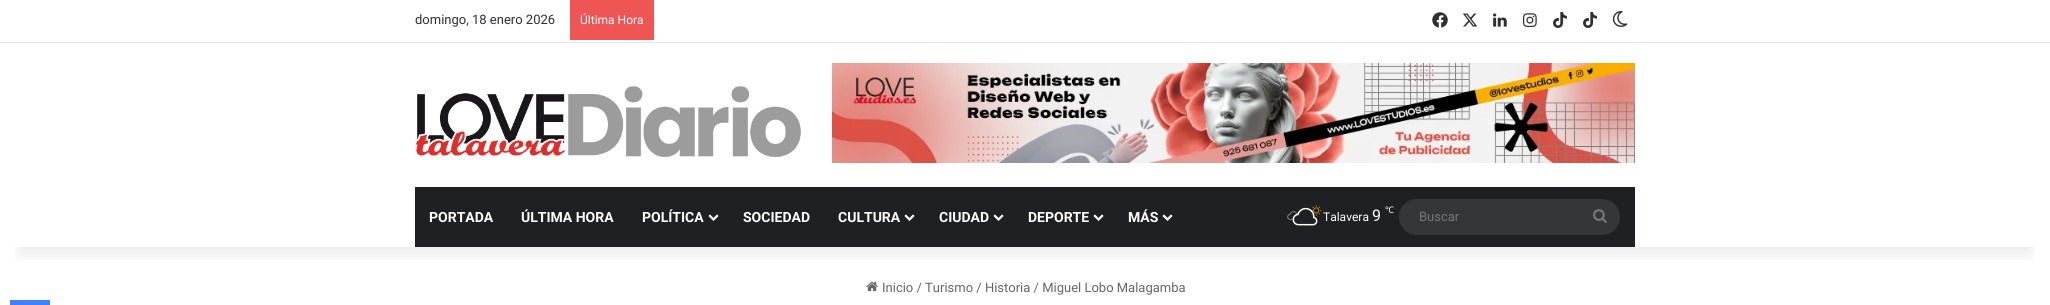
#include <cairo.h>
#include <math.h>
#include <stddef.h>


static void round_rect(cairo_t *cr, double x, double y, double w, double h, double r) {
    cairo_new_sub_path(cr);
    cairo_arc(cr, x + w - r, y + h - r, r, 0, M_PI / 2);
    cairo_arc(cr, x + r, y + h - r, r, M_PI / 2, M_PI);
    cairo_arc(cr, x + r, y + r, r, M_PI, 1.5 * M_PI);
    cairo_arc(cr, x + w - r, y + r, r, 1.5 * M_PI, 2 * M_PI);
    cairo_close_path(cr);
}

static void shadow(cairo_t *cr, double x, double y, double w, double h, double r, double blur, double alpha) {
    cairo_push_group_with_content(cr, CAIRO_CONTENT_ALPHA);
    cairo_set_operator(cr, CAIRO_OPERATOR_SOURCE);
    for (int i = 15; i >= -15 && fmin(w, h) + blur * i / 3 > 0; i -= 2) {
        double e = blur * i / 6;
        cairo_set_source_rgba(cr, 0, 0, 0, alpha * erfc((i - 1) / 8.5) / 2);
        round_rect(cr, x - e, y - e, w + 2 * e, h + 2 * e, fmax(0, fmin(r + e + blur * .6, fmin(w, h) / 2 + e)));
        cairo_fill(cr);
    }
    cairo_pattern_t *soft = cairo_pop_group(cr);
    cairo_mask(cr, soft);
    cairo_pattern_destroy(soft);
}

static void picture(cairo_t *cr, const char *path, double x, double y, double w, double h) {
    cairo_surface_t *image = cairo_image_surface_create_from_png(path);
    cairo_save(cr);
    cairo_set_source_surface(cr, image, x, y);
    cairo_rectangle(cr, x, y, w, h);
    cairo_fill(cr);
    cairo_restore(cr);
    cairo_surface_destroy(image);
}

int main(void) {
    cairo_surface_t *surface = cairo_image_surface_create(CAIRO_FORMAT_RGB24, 2050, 305);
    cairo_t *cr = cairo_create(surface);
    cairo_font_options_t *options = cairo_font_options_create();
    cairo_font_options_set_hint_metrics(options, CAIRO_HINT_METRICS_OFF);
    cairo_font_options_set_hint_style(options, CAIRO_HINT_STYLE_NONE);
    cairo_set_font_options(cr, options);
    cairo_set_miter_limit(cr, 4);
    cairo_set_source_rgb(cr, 1, 1, 1);
    cairo_paint(cr);
    picture(cr, "img15.png", 866, 281, 12, 11);
    cairo_save(cr);
    cairo_rectangle(cr, 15, 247, 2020, 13);
    cairo_clip(cr);
    cairo_set_source_rgb(cr, 0, 0, 0);
    shadow(cr, 20, 45, 2010, 207, 0, 10, 0.1);
    cairo_restore(cr);
    cairo_set_source_rgb(cr, 0.902, 0.902, 0.902);
    cairo_rectangle(cr, 0, 42, 2050, 1);
    cairo_fill(cr);
    cairo_select_font_face(cr, "Roboto", CAIRO_FONT_SLANT_NORMAL, CAIRO_FONT_WEIGHT_NORMAL);
    cairo_set_font_size(cr, 13);
    cairo_set_source_rgb(cr, 0.173, 0.184, 0.204);
    cairo_move_to(cr, 415, 24);
    cairo_show_text(cr, "domingo, 18 enero 2026");
    cairo_set_source_rgb(cr, 0.941, 0.333, 0.333);
    cairo_rectangle(cr, 570, 0, 84, 40);
    cairo_fill(cr);
    cairo_set_font_size(cr, 12);
    cairo_set_source_rgb(cr, 1, 1, 1);
    cairo_move_to(cr, 580, 24);
    cairo_show_text(cr, "Última Hora");
    picture(cr, "img1.png", 1432, 12, 16, 16);
    picture(cr, "img2.png", 1463, 13, 15, 14);
    picture(cr, "img3.png", 1493, 13, 14, 14);
    picture(cr, "img4.png", 1523, 13, 14, 14);
    picture(cr, "img5.png", 1553, 12, 14, 16);
    picture(cr, "img5.png", 1583, 12, 14, 16);
    picture(cr, "img6.png", 1612, 11, 16, 16);
    picture(cr, "img7.png", 415, 86, 386, 71);
    picture(cr, "img8.png", 832, 63, 803, 100);
    cairo_set_source_rgb(cr, 0.122, 0.125, 0.141);
    cairo_rectangle(cr, 415, 187, 1220, 60);
    cairo_fill(cr);
    cairo_select_font_face(cr, "Roboto", CAIRO_FONT_SLANT_NORMAL, CAIRO_FONT_WEIGHT_BOLD);
    cairo_set_font_size(cr, 14);
    cairo_set_source_rgb(cr, 1, 1, 1);
    cairo_move_to(cr, 429, 222);
    cairo_show_text(cr, "PORTADA");
    cairo_move_to(cr, 521, 222);
    cairo_show_text(cr, "ÚLTIMA HORA");
    cairo_move_to(cr, 642, 222);
    cairo_show_text(cr, "POLÍTICA");
    picture(cr, "img9.png", 708, 214, 11, 7);
    cairo_move_to(cr, 743, 222);
    cairo_show_text(cr, "SOCIEDAD");
    cairo_move_to(cr, 838, 222);
    cairo_show_text(cr, "CULTURA");
    picture(cr, "img9.png", 904, 214, 11, 7);
    cairo_move_to(cr, 939, 222);
    cairo_show_text(cr, "CIUDAD");
    picture(cr, "img9.png", 993, 214, 11, 7);
    cairo_move_to(cr, 1028, 222);
    cairo_show_text(cr, "DEPORTE");
    picture(cr, "img9.png", 1093, 214, 11, 7);
    cairo_move_to(cr, 1128, 222);
    cairo_show_text(cr, "MÁS");
    picture(cr, "img9.png", 1162, 214, 11, 7);
    picture(cr, "img10.png", 1311, 205, 11, 11);
    picture(cr, "img13.png", 1287, 211, 11, 9);
    picture(cr, "img12.png", 1292, 210, 22, 10);
    picture(cr, "img11.png", 1292, 207, 26, 19);
    cairo_select_font_face(cr, "Roboto", CAIRO_FONT_SLANT_NORMAL, CAIRO_FONT_WEIGHT_NORMAL);
    cairo_set_font_size(cr, 12);
    cairo_move_to(cr, 1323, 221);
    cairo_show_text(cr, "Talavera");
    cairo_set_font_size(cr, 16);
    cairo_move_to(cr, 1372, 221);
    cairo_show_text(cr, "9");
    cairo_select_font_face(cr, "Noto Sans", CAIRO_FONT_SLANT_NORMAL, CAIRO_FONT_WEIGHT_NORMAL);
    cairo_set_font_size(cr, 9);
    cairo_move_to(cr, 1385, 213);
    cairo_show_text(cr, "℃");
    cairo_set_source_rgb(cr, 0.208, 0.212, 0.227);
    round_rect(cr, 1399, 199, 221, 36, 18);
    cairo_fill(cr);
    cairo_select_font_face(cr, "Roboto", CAIRO_FONT_SLANT_NORMAL, CAIRO_FONT_WEIGHT_NORMAL);
    cairo_set_font_size(cr, 13);
    cairo_set_source_rgb(cr, 0.459, 0.459, 0.459);
    cairo_move_to(cr, 1419, 221);
    cairo_show_text(cr, "Buscar");
    picture(cr, "img14.png", 1593, 209, 14, 14);
    cairo_set_source_rgb(cr, 0.4, 0.4, 0.4);
    cairo_move_to(cr, 882, 292);
    cairo_show_text(cr, "Inicio / Turismo / Historia / Miguel Lobo Malagamba");
    cairo_set_source_rgb(cr, 0.251, 0.502, 1);
    cairo_rectangle(cr, 10, 300, 40, 5);
    cairo_fill(cr);
    cairo_surface_write_to_png(surface, "page.png");
    cairo_font_options_destroy(options);
    cairo_destroy(cr);
    cairo_surface_destroy(surface);
    return 0;
}
